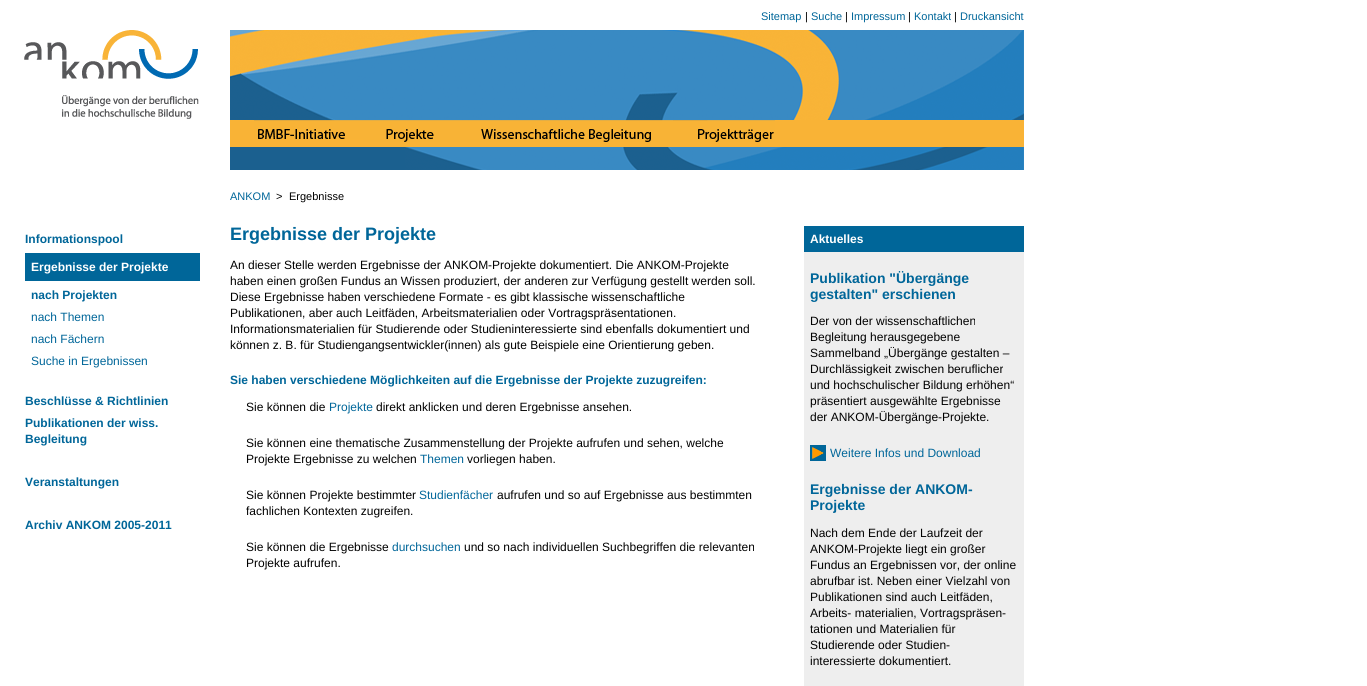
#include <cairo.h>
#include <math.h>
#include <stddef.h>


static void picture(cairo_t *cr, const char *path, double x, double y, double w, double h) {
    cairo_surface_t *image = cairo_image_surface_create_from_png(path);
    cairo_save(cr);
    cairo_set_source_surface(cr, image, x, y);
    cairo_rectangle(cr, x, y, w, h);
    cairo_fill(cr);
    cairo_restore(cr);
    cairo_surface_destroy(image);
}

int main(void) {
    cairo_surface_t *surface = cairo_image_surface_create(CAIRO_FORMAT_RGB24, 1367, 686);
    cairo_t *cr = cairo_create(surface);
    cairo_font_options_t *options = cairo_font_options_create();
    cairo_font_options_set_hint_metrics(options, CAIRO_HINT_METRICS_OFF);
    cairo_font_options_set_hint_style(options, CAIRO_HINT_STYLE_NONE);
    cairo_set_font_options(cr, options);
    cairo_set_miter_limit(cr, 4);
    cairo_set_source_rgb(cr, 1, 1, 1);
    cairo_paint(cr);
    cairo_select_font_face(cr, "Liberation Sans", CAIRO_FONT_SLANT_NORMAL, CAIRO_FONT_WEIGHT_NORMAL);
    cairo_set_font_size(cr, 11);
    cairo_set_source_rgb(cr, 0, 0.4, 0.6);
    cairo_move_to(cr, 761, 20);
    cairo_show_text(cr, "Sitemap");
    cairo_set_source_rgb(cr, 0, 0, 0);
    cairo_move_to(cr, 805, 20);
    cairo_show_text(cr, "|");
    cairo_set_source_rgb(cr, 0, 0.4, 0.6);
    cairo_move_to(cr, 811, 20);
    cairo_show_text(cr, "Suche");
    cairo_set_source_rgb(cr, 0, 0, 0);
    cairo_move_to(cr, 845, 20);
    cairo_show_text(cr, "|");
    cairo_set_source_rgb(cr, 0, 0.4, 0.6);
    cairo_move_to(cr, 851, 20);
    cairo_show_text(cr, "Impressum");
    cairo_set_source_rgb(cr, 0, 0, 0);
    cairo_move_to(cr, 908, 20);
    cairo_show_text(cr, "|");
    cairo_set_source_rgb(cr, 0, 0.4, 0.6);
    cairo_move_to(cr, 914, 20);
    cairo_show_text(cr, "Kontakt");
    cairo_set_source_rgb(cr, 0, 0, 0);
    cairo_move_to(cr, 954, 20);
    cairo_show_text(cr, "|");
    cairo_set_source_rgb(cr, 0, 0.4, 0.6);
    cairo_move_to(cr, 960, 20);
    cairo_show_text(cr, "Druckansicht");
    picture(cr, "img1.png", 24, 30, 175, 89);
    picture(cr, "img2.png", 230, 30, 794, 90);
    cairo_set_source_rgb(cr, 0.973, 0.702, 0.212);
    cairo_rectangle(cr, 230, 120, 794, 27);
    cairo_fill(cr);
    picture(cr, "img3.png", 254, 120, 109, 19);
    picture(cr, "img4.png", 363, 120, 97, 22);
    picture(cr, "img5.png", 460, 120, 213, 22);
    picture(cr, "img6.png", 673, 120, 102, 22);
    cairo_set_source_rgb(cr, 0.106, 0.376, 0.561);
    cairo_rectangle(cr, 230, 147, 175, 23);
    cairo_fill(cr);
    picture(cr, "img7.png", 405, 147, 619, 23);
    cairo_select_font_face(cr, "Liberation Sans", CAIRO_FONT_SLANT_NORMAL, CAIRO_FONT_WEIGHT_BOLD);
    cairo_set_font_size(cr, 12);
    cairo_set_source_rgb(cr, 0, 0.4, 0.6);
    cairo_move_to(cr, 25, 243);
    cairo_show_text(cr, "Informationspool");
    cairo_rectangle(cr, 25, 253, 175, 28);
    cairo_fill(cr);
    cairo_set_source_rgb(cr, 1, 1, 1);
    cairo_move_to(cr, 31, 271);
    cairo_show_text(cr, "Ergebnisse der Projekte");
    cairo_set_source_rgb(cr, 0, 0.4, 0.6);
    cairo_move_to(cr, 31, 299);
    cairo_show_text(cr, "nach Projekten");
    cairo_select_font_face(cr, "Liberation Sans", CAIRO_FONT_SLANT_NORMAL, CAIRO_FONT_WEIGHT_NORMAL);
    cairo_move_to(cr, 31, 321);
    cairo_show_text(cr, "nach Themen");
    cairo_move_to(cr, 31, 343);
    cairo_show_text(cr, "nach Fächern");
    cairo_move_to(cr, 31, 365);
    cairo_show_text(cr, "Suche in Ergebnissen");
    cairo_select_font_face(cr, "Liberation Sans", CAIRO_FONT_SLANT_NORMAL, CAIRO_FONT_WEIGHT_BOLD);
    cairo_move_to(cr, 25, 405);
    cairo_show_text(cr, "Beschlüsse & Richtlinien");
    cairo_move_to(cr, 25, 427);
    cairo_show_text(cr, "Publikationen der wiss.");
    cairo_move_to(cr, 25, 443);
    cairo_show_text(cr, "Begleitung");
    cairo_move_to(cr, 25, 486);
    cairo_show_text(cr, "Veranstaltungen");
    cairo_move_to(cr, 25, 529);
    cairo_show_text(cr, "Archiv ANKOM 2005-2011");
    cairo_select_font_face(cr, "Liberation Sans", CAIRO_FONT_SLANT_NORMAL, CAIRO_FONT_WEIGHT_NORMAL);
    cairo_set_font_size(cr, 11);
    cairo_move_to(cr, 230, 200);
    cairo_show_text(cr, "ANKOM");
    cairo_set_source_rgb(cr, 0, 0, 0);
    cairo_move_to(cr, 276, 200);
    cairo_show_text(cr, ">");
    cairo_move_to(cr, 289, 200);
    cairo_show_text(cr, "Ergebnisse");
    cairo_select_font_face(cr, "Liberation Sans", CAIRO_FONT_SLANT_NORMAL, CAIRO_FONT_WEIGHT_BOLD);
    cairo_set_font_size(cr, 18);
    cairo_set_source_rgb(cr, 0, 0.4, 0.6);
    cairo_move_to(cr, 230, 240);
    cairo_show_text(cr, "Ergebnisse der Projekte");
    cairo_select_font_face(cr, "Liberation Sans", CAIRO_FONT_SLANT_NORMAL, CAIRO_FONT_WEIGHT_NORMAL);
    cairo_set_font_size(cr, 12);
    cairo_set_source_rgb(cr, 0, 0, 0);
    cairo_move_to(cr, 230, 269);
    cairo_show_text(cr, "An dieser Stelle werden Ergebnisse der ANKOM-Projekte dokumentiert. Die ANKOM-Projekte");
    cairo_move_to(cr, 230, 285);
    cairo_show_text(cr, "haben einen großen Fundus an Wissen produziert, der anderen zur Verfügung gestellt werden soll.");
    cairo_move_to(cr, 230, 301);
    cairo_show_text(cr, "Diese Ergebnisse haben verschiedene Formate - es gibt klassische wissenschaftliche");
    cairo_move_to(cr, 230, 317);
    cairo_show_text(cr, "Publikationen, aber auch Leitfäden, Arbeitsmaterialien oder Vortragspräsentationen.");
    cairo_move_to(cr, 230, 333);
    cairo_show_text(cr, "Informationsmaterialien für Studierende oder Studieninteressierte sind ebenfalls dokumentiert und");
    cairo_move_to(cr, 230, 349);
    cairo_show_text(cr, "können z. B. für Studiengangsentwickler(innen) als gute Beispiele eine Orientierung geben.");
    cairo_select_font_face(cr, "Liberation Sans", CAIRO_FONT_SLANT_NORMAL, CAIRO_FONT_WEIGHT_BOLD);
    cairo_set_source_rgb(cr, 0, 0.4, 0.6);
    cairo_move_to(cr, 230, 384);
    cairo_show_text(cr, "Sie haben verschiedene Möglichkeiten auf die Ergebnisse der Projekte zuzugreifen:");
    cairo_select_font_face(cr, "Liberation Sans", CAIRO_FONT_SLANT_NORMAL, CAIRO_FONT_WEIGHT_NORMAL);
    cairo_set_source_rgb(cr, 0, 0, 0);
    cairo_move_to(cr, 246, 411);
    cairo_show_text(cr, "Sie können die");
    cairo_set_source_rgb(cr, 0, 0.4, 0.6);
    cairo_move_to(cr, 329, 411);
    cairo_show_text(cr, "Projekte");
    cairo_set_source_rgb(cr, 0, 0, 0);
    cairo_move_to(cr, 376, 411);
    cairo_show_text(cr, "direkt anklicken und deren Ergebnisse ansehen.");
    cairo_move_to(cr, 246, 447);
    cairo_show_text(cr, "Sie können eine thematische Zusammenstellung der Projekte aufrufen und sehen, welche");
    cairo_move_to(cr, 246, 463);
    cairo_show_text(cr, "Projekte Ergebnisse zu welchen");
    cairo_set_source_rgb(cr, 0, 0.4, 0.6);
    cairo_move_to(cr, 420, 463);
    cairo_show_text(cr, "Themen");
    cairo_set_source_rgb(cr, 0, 0, 0);
    cairo_move_to(cr, 467, 463);
    cairo_show_text(cr, "vorliegen haben.");
    cairo_move_to(cr, 246, 499);
    cairo_show_text(cr, "Sie können Projekte bestimmter");
    cairo_set_source_rgb(cr, 0, 0.4, 0.6);
    cairo_move_to(cr, 419, 499);
    cairo_show_text(cr, "Studienfächer");
    cairo_set_source_rgb(cr, 0, 0, 0);
    cairo_move_to(cr, 497, 499);
    cairo_show_text(cr, "aufrufen und so auf Ergebnisse aus bestimmten");
    cairo_move_to(cr, 246, 515);
    cairo_show_text(cr, "fachlichen Kontexten zugreifen.");
    cairo_move_to(cr, 246, 551);
    cairo_show_text(cr, "Sie können die Ergebnisse");
    cairo_set_source_rgb(cr, 0, 0.4, 0.6);
    cairo_move_to(cr, 392, 551);
    cairo_show_text(cr, "durchsuchen");
    cairo_set_source_rgb(cr, 0, 0, 0);
    cairo_move_to(cr, 464, 551);
    cairo_show_text(cr, "und so nach individuellen Suchbegriffen die relevanten");
    cairo_move_to(cr, 246, 567);
    cairo_show_text(cr, "Projekte aufrufen.");
    cairo_set_source_rgb(cr, 0, 0.4, 0.6);
    cairo_rectangle(cr, 804, 226, 220, 26);
    cairo_fill(cr);
    cairo_select_font_face(cr, "Liberation Sans", CAIRO_FONT_SLANT_NORMAL, CAIRO_FONT_WEIGHT_BOLD);
    cairo_set_source_rgb(cr, 1, 1, 1);
    cairo_move_to(cr, 810, 243);
    cairo_show_text(cr, "Aktuelles");
    cairo_set_source_rgb(cr, 0.933, 0.933, 0.933);
    cairo_rectangle(cr, 804, 252, 220, 434);
    cairo_fill(cr);
    cairo_set_font_size(cr, 14);
    cairo_set_source_rgb(cr, 0, 0.4, 0.6);
    cairo_move_to(cr, 810, 283);
    cairo_show_text(cr, "Publikation \"Übergänge");
    cairo_move_to(cr, 810, 299);
    cairo_show_text(cr, "gestalten\" erschienen");
    cairo_select_font_face(cr, "Liberation Sans", CAIRO_FONT_SLANT_NORMAL, CAIRO_FONT_WEIGHT_NORMAL);
    cairo_set_font_size(cr, 12);
    cairo_set_source_rgb(cr, 0, 0, 0);
    cairo_move_to(cr, 810, 325);
    cairo_show_text(cr, "Der von der wissenschaftlichen");
    cairo_move_to(cr, 810, 341);
    cairo_show_text(cr, "Begleitung herausgegebene");
    cairo_move_to(cr, 810, 357);
    cairo_show_text(cr, "Sammelband „Übergänge gestalten –");
    cairo_move_to(cr, 810, 373);
    cairo_show_text(cr, "Durchlässigkeit zwischen beruflicher");
    cairo_move_to(cr, 810, 389);
    cairo_show_text(cr, "und hochschulischer Bildung erhöhen“");
    cairo_move_to(cr, 810, 405);
    cairo_show_text(cr, "präsentiert ausgewählte Ergebnisse");
    cairo_move_to(cr, 810, 421);
    cairo_show_text(cr, "der ANKOM-Übergänge-Projekte.");
    picture(cr, "img8.png", 810, 445, 16, 16);
    cairo_set_source_rgb(cr, 0, 0.4, 0.6);
    cairo_move_to(cr, 830, 457);
    cairo_show_text(cr, "Weitere Infos und Download");
    cairo_select_font_face(cr, "Liberation Sans", CAIRO_FONT_SLANT_NORMAL, CAIRO_FONT_WEIGHT_BOLD);
    cairo_set_font_size(cr, 14);
    cairo_move_to(cr, 810, 494);
    cairo_show_text(cr, "Ergebnisse der ANKOM-");
    cairo_move_to(cr, 810, 510);
    cairo_show_text(cr, "Projekte");
    cairo_select_font_face(cr, "Liberation Sans", CAIRO_FONT_SLANT_NORMAL, CAIRO_FONT_WEIGHT_NORMAL);
    cairo_set_font_size(cr, 12);
    cairo_set_source_rgb(cr, 0, 0, 0);
    cairo_move_to(cr, 810, 537);
    cairo_show_text(cr, "Nach dem Ende der Laufzeit der");
    cairo_move_to(cr, 810, 553);
    cairo_show_text(cr, "ANKOM-Projekte liegt ein großer");
    cairo_move_to(cr, 810, 569);
    cairo_show_text(cr, "Fundus an Ergebnissen vor, der online");
    cairo_move_to(cr, 810, 585);
    cairo_show_text(cr, "abrufbar ist. Neben einer Vielzahl von");
    cairo_move_to(cr, 810, 601);
    cairo_show_text(cr, "Publikationen sind auch Leitfäden,");
    cairo_move_to(cr, 810, 617);
    cairo_show_text(cr, "Arbeits- materialien, Vortragspräsen-");
    cairo_move_to(cr, 810, 633);
    cairo_show_text(cr, "tationen und Materialien für");
    cairo_move_to(cr, 810, 649);
    cairo_show_text(cr, "Studierende oder Studien-");
    cairo_move_to(cr, 810, 665);
    cairo_show_text(cr, "interessierte dokumentiert.");
    cairo_surface_write_to_png(surface, "page.png");
    cairo_font_options_destroy(options);
    cairo_destroy(cr);
    cairo_surface_destroy(surface);
    return 0;
}
